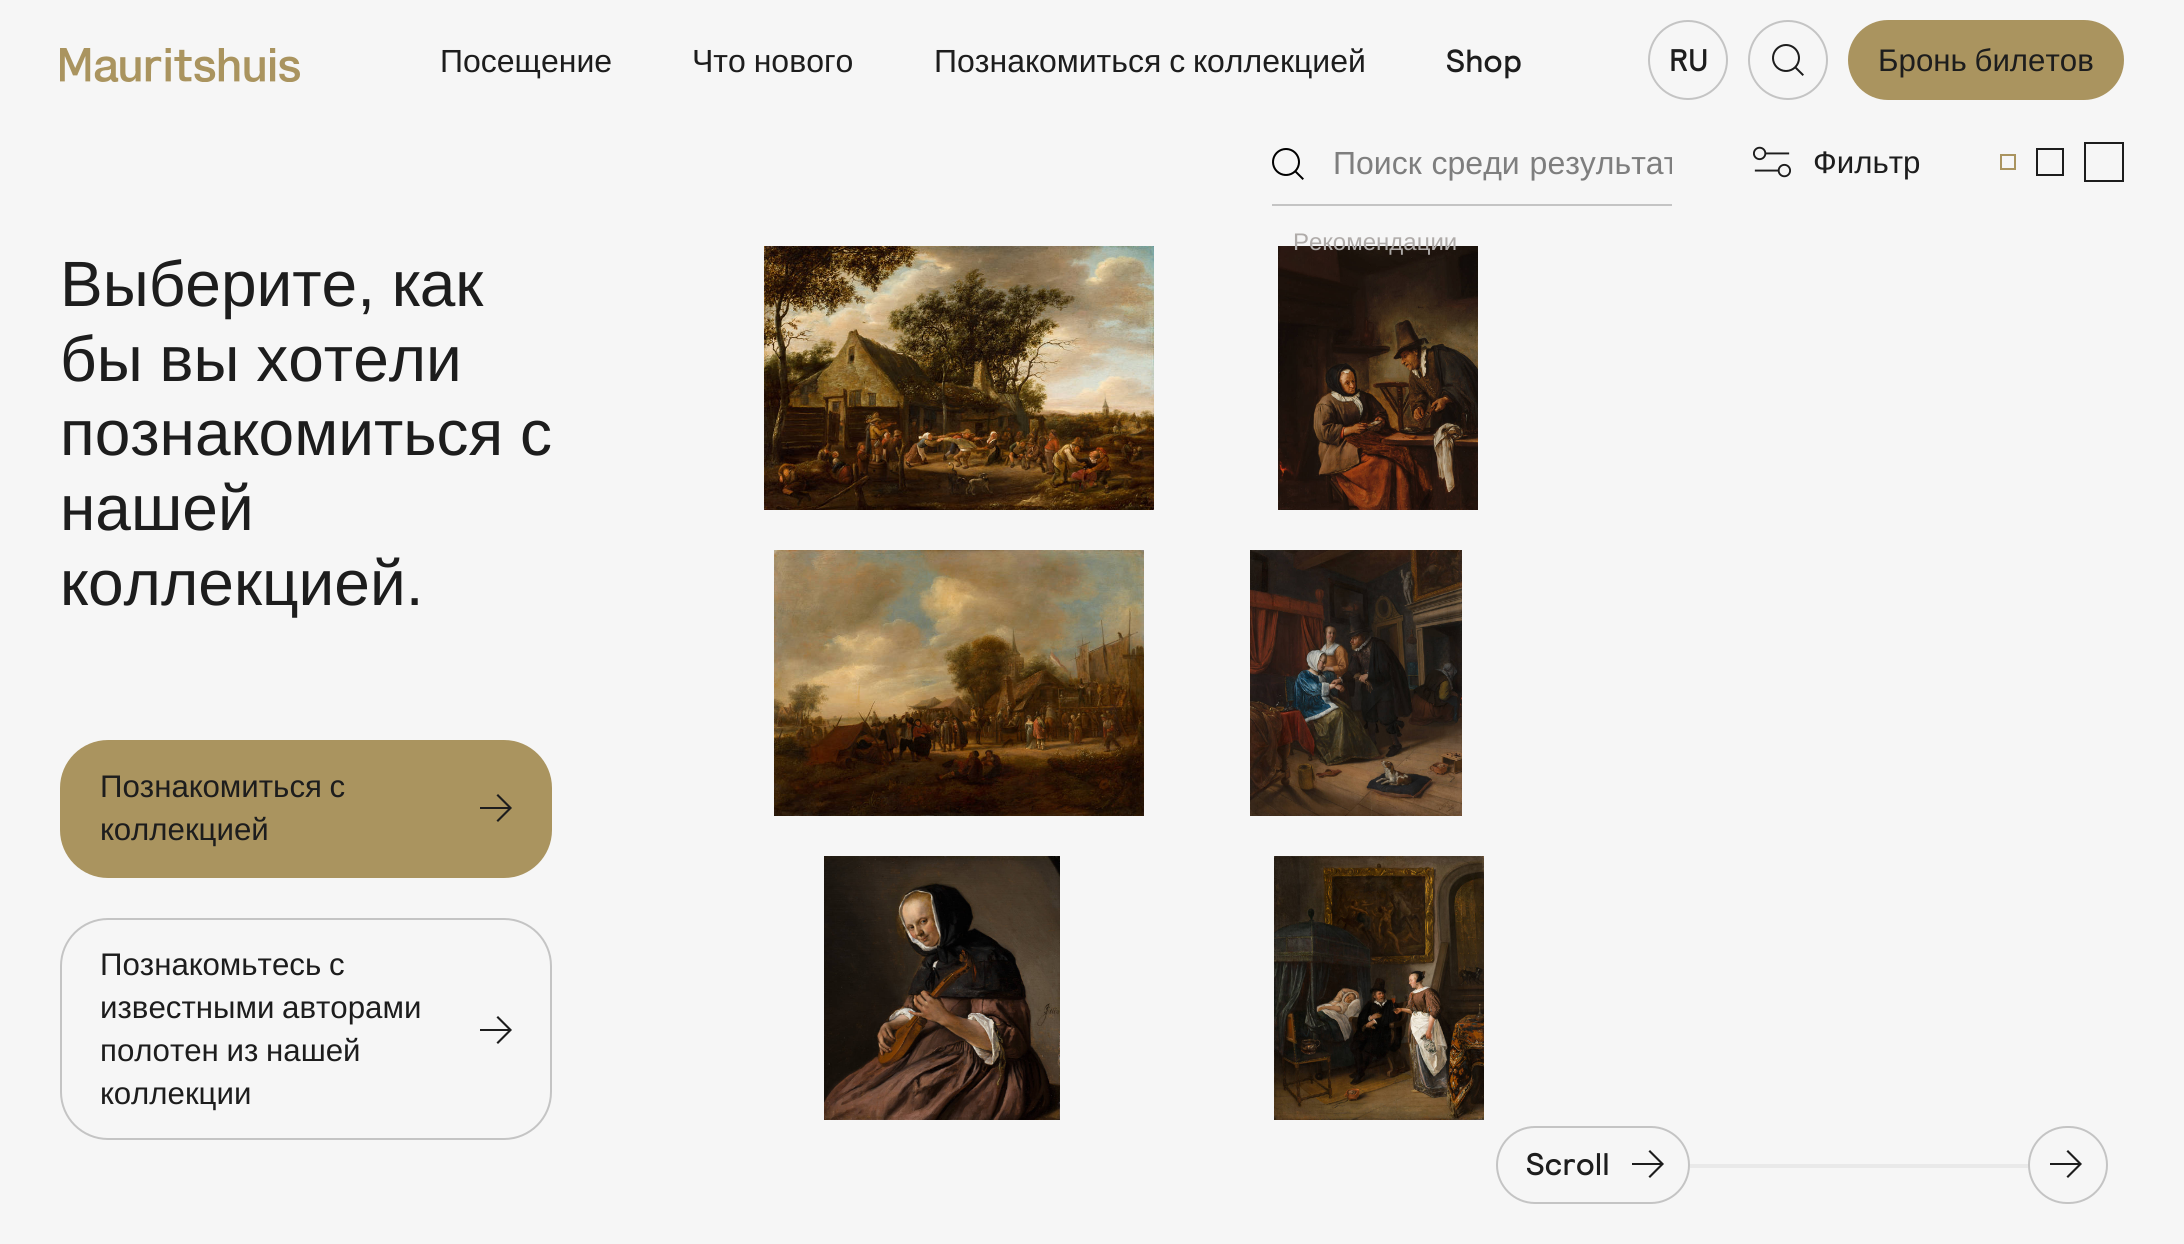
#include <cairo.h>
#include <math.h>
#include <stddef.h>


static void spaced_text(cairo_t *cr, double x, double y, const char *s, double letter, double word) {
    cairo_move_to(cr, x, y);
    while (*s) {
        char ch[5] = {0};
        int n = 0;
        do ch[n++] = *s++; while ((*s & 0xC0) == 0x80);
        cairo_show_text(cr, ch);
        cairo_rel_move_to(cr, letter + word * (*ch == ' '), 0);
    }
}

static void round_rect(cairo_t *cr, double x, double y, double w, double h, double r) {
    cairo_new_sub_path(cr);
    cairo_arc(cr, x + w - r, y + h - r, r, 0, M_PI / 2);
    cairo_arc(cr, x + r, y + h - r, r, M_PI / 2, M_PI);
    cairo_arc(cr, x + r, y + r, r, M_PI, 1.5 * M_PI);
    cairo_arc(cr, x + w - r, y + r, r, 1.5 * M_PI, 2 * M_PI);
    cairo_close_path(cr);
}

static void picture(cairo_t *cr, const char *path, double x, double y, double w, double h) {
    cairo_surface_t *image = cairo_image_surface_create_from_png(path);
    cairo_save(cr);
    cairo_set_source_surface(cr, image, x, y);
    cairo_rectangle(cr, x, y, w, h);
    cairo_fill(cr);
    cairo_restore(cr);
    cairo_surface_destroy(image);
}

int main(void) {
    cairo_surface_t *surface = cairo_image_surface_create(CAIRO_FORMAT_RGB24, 2184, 1244);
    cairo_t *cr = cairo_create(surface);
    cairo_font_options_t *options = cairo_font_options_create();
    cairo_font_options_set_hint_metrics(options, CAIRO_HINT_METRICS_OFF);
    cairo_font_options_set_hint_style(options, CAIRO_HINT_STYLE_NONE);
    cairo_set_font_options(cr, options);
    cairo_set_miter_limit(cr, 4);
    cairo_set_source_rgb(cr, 0.961, 0.961, 0.961);
    cairo_paint(cr);
    picture(cr, "img1.png", 60, 48, 240, 34);
    cairo_select_font_face(cr, "Liberation Sans", CAIRO_FONT_SLANT_NORMAL, CAIRO_FONT_WEIGHT_NORMAL);
    cairo_set_font_size(cr, 32);
    cairo_set_source_rgb(cr, 0.114, 0.114, 0.114);
    cairo_move_to(cr, 440, 72);
    cairo_show_text(cr, "Посещение");
    spaced_text(cr, 692, 72, "Что нового", 0, -1);
    spaced_text(cr, 934, 72, "Познакомиться с коллекцией", 0, -1);
    cairo_select_font_face(cr, "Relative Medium", CAIRO_FONT_SLANT_NORMAL, CAIRO_FONT_WEIGHT_NORMAL);
    cairo_move_to(cr, 1446, 72);
    cairo_show_text(cr, "Shop");
    cairo_new_path(cr);
    cairo_arc(cr, 1688, 60, 39, 0, 2 * M_PI);
    cairo_set_source_rgb(cr, 0.769, 0.769, 0.769);
    cairo_stroke(cr);
    cairo_set_font_size(cr, 31.25);
    cairo_set_source_rgb(cr, 0.114, 0.114, 0.114);
    cairo_move_to(cr, 1669, 71);
    cairo_show_text(cr, "RU");
    cairo_new_path(cr);
    cairo_arc(cr, 1788, 60, 39, 0, 2 * M_PI);
    cairo_set_source_rgb(cr, 0.769, 0.769, 0.769);
    cairo_stroke(cr);
    picture(cr, "img2.png", 1772, 44, 32, 32);
    cairo_set_source_rgb(cr, 0.667, 0.58, 0.373);
    round_rect(cr, 1848, 20, 276, 80, 40);
    cairo_fill(cr);
    cairo_select_font_face(cr, "Liberation Sans", CAIRO_FONT_SLANT_NORMAL, CAIRO_FONT_WEIGHT_NORMAL);
    cairo_set_source_rgb(cr, 0.114, 0.114, 0.114);
    spaced_text(cr, 1878, 71, "Бронь билетов", 0, -1);
    picture(cr, "img3.png", 1272, 148, 32, 32);
    cairo_set_source_rgb(cr, 0.769, 0.769, 0.769);
    cairo_rectangle(cr, 1272, 204, 400, 2);
    cairo_fill(cr);
    cairo_save(cr);
    cairo_rectangle(cr, 1332, 142, 340, 40);
    cairo_clip(cr);
    cairo_set_font_size(cr, 32);
    cairo_set_source_rgb(cr, 0.494, 0.494, 0.494);
    spaced_text(cr, 1333, 174, "Поиск среди результат", 0, 1);
    cairo_restore(cr);
    picture(cr, "img6.png", 1278, 246, 200, 264);
    cairo_set_font_size(cr, 24);
    cairo_set_source_rgb(cr, 0.686, 0.671, 0.663);
    cairo_move_to(cr, 1293, 250);
    cairo_show_text(cr, "Рекомендации");
    picture(cr, "img4.png", 1753, 146, 38, 32);
    cairo_set_font_size(cr, 31.25);
    cairo_set_source_rgb(cr, 0.114, 0.114, 0.114);
    cairo_move_to(cr, 1813, 173);
    cairo_show_text(cr, "Фильтр");
    cairo_rectangle(cr, 2001, 155, 14, 14);
    cairo_set_source_rgb(cr, 0.667, 0.58, 0.373);
    cairo_stroke(cr);
    cairo_rectangle(cr, 2037, 149, 26, 26);
    cairo_set_source_rgb(cr, 0.114, 0.114, 0.114);
    cairo_stroke(cr);
    cairo_rectangle(cr, 2085, 143, 38, 38);
    cairo_stroke(cr);
    cairo_set_font_size(cr, 64);
    spaced_text(cr, 60, 306, "Выберите, как", 0, -1);
    spaced_text(cr, 60, 381, "бы вы хотели", 0, -1);
    spaced_text(cr, 60, 455, "познакомиться с", 0, -1);
    cairo_move_to(cr, 60, 530);
    cairo_show_text(cr, "нашей");
    cairo_move_to(cr, 60, 605);
    cairo_show_text(cr, "коллекцией.");
    cairo_set_source_rgb(cr, 0.667, 0.58, 0.373);
    round_rect(cr, 60, 740, 492, 138, 48);
    cairo_fill(cr);
    cairo_set_font_size(cr, 31.25);
    cairo_set_source_rgb(cr, 0.114, 0.114, 0.114);
    spaced_text(cr, 100, 797, "Познакомиться с", 0, -1);
    cairo_move_to(cr, 100, 840);
    cairo_show_text(cr, "коллекцией");
    cairo_new_path(cr);
    cairo_move_to(cr, 498, 794);
    cairo_line_to(cr, 512, 808);
    cairo_line_to(cr, 498, 822);
    cairo_line_to(cr, 496.5, 820.5);
    cairo_line_to(cr, 508, 809);
    cairo_line_to(cr, 480, 809);
    cairo_line_to(cr, 480, 807);
    cairo_line_to(cr, 508, 807);
    cairo_line_to(cr, 496.5, 795.5);
    cairo_close_path(cr);
    cairo_fill(cr);
    round_rect(cr, 61, 919, 490, 220, 47);
    cairo_set_source_rgb(cr, 0.769, 0.769, 0.769);
    cairo_stroke(cr);
    cairo_set_source_rgb(cr, 0.114, 0.114, 0.114);
    spaced_text(cr, 100, 975, "Познакомьтесь с", 0, -1);
    spaced_text(cr, 100, 1018, "известными авторами", 0, -1);
    cairo_new_path(cr);
    cairo_move_to(cr, 498, 1016);
    cairo_line_to(cr, 512, 1030);
    cairo_line_to(cr, 498, 1044);
    cairo_line_to(cr, 496.5, 1042.5);
    cairo_line_to(cr, 508, 1031);
    cairo_line_to(cr, 480, 1031);
    cairo_line_to(cr, 480, 1029);
    cairo_line_to(cr, 508, 1029);
    cairo_line_to(cr, 496.5, 1017.5);
    cairo_close_path(cr);
    cairo_fill(cr);
    spaced_text(cr, 100, 1061, "полотен из нашей", 0, -1);
    cairo_move_to(cr, 100, 1104);
    cairo_show_text(cr, "коллекции");
    picture(cr, "img5.png", 764, 246, 390, 264);
    picture(cr, "img7.png", 774, 550, 370, 266);
    picture(cr, "img8.png", 1250, 550, 212, 266);
    picture(cr, "img9.png", 824, 856, 236, 264);
    picture(cr, "img10.png", 1274, 856, 210, 264);
    round_rect(cr, 1497, 1127, 192, 76, 38);
    cairo_set_source_rgb(cr, 0.769, 0.769, 0.769);
    cairo_stroke(cr);
    cairo_select_font_face(cr, "Relative Medium", CAIRO_FONT_SLANT_NORMAL, CAIRO_FONT_WEIGHT_NORMAL);
    cairo_set_source_rgb(cr, 0.114, 0.114, 0.114);
    cairo_move_to(cr, 1526, 1175);
    cairo_show_text(cr, "Scroll");
    cairo_new_path(cr);
    cairo_move_to(cr, 1650, 1150);
    cairo_line_to(cr, 1664, 1164);
    cairo_line_to(cr, 1650, 1178);
    cairo_line_to(cr, 1648.5, 1176.5);
    cairo_line_to(cr, 1660, 1165);
    cairo_line_to(cr, 1632, 1165);
    cairo_line_to(cr, 1632, 1163);
    cairo_line_to(cr, 1660, 1163);
    cairo_line_to(cr, 1648.5, 1151.5);
    cairo_close_path(cr);
    cairo_fill(cr);
    cairo_set_source_rgb(cr, 0.914, 0.914, 0.914);
    cairo_rectangle(cr, 1690, 1164, 338, 4);
    cairo_fill(cr);
    round_rect(cr, 2029, 1127, 78, 76, 38);
    cairo_set_source_rgb(cr, 0.769, 0.769, 0.769);
    cairo_stroke(cr);
    cairo_set_source_rgb(cr, 0.114, 0.114, 0.114);
    cairo_new_path(cr);
    cairo_move_to(cr, 2068, 1150);
    cairo_line_to(cr, 2082, 1164);
    cairo_line_to(cr, 2068, 1178);
    cairo_line_to(cr, 2066.5, 1176.5);
    cairo_line_to(cr, 2078, 1165);
    cairo_line_to(cr, 2050, 1165);
    cairo_line_to(cr, 2050, 1163);
    cairo_line_to(cr, 2078, 1163);
    cairo_line_to(cr, 2066.5, 1151.5);
    cairo_close_path(cr);
    cairo_fill(cr);
    cairo_surface_write_to_png(surface, "page.png");
    cairo_font_options_destroy(options);
    cairo_destroy(cr);
    cairo_surface_destroy(surface);
    return 0;
}
